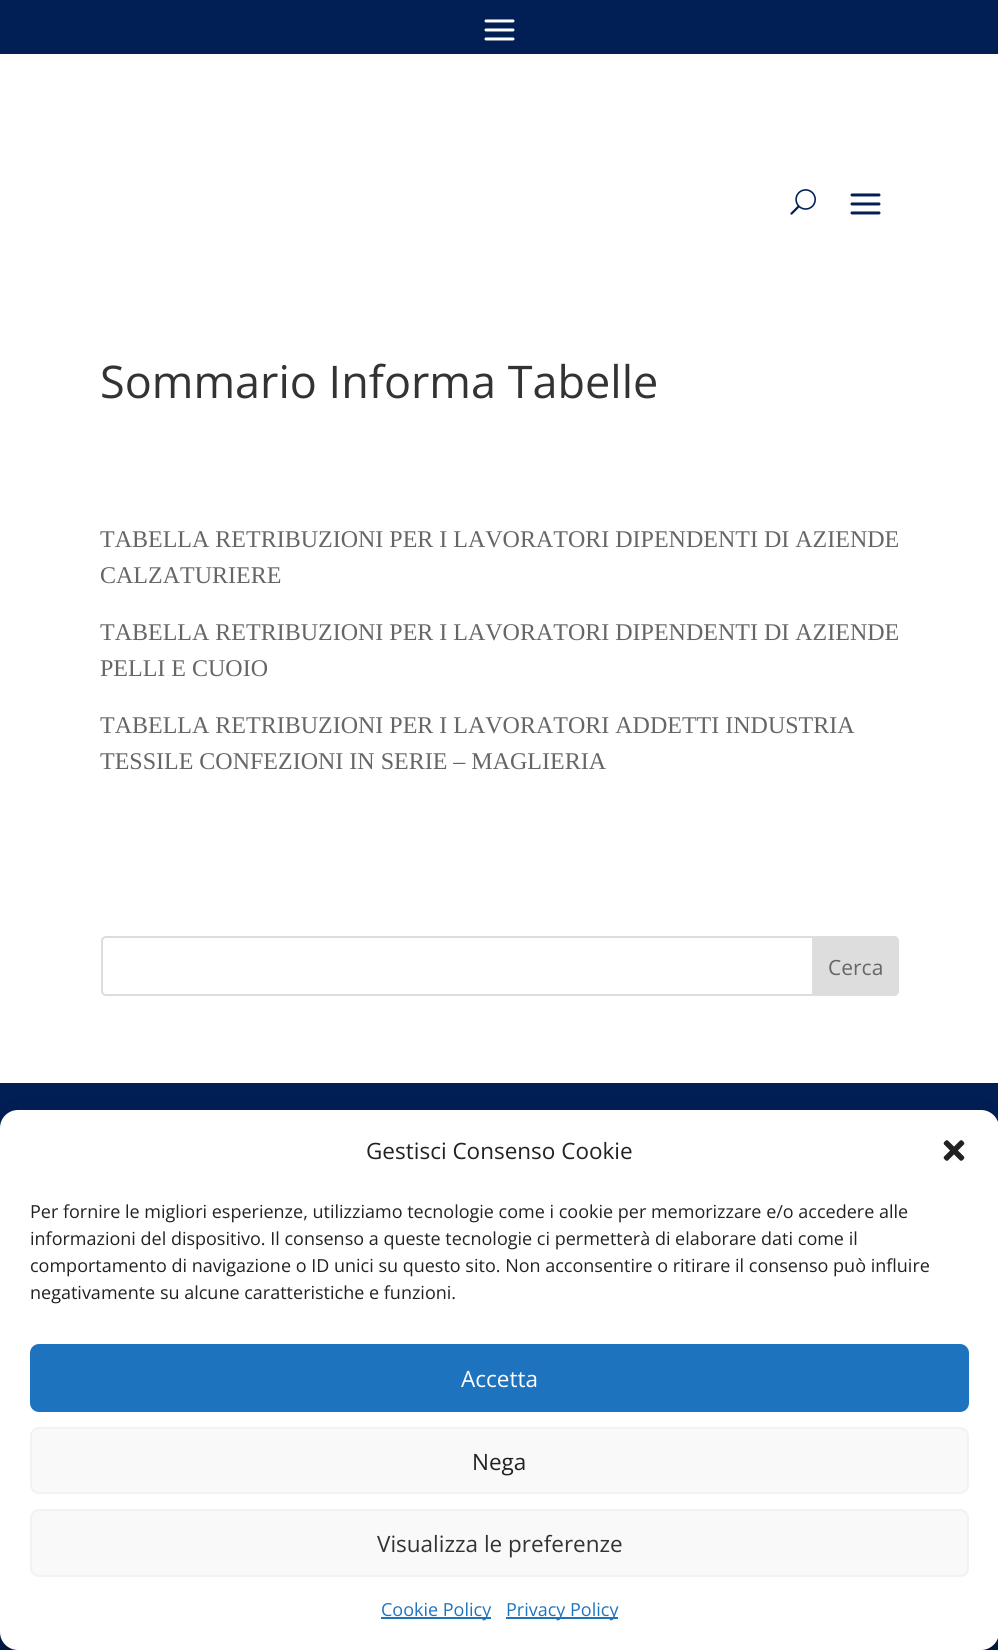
#include <cairo.h>
#include <math.h>
#include <stddef.h>


static void round_rect(cairo_t *cr, double x, double y, double w, double h, double r) {
    cairo_new_sub_path(cr);
    cairo_arc(cr, x + w - r, y + h - r, r, 0, M_PI / 2);
    cairo_arc(cr, x + r, y + h - r, r, M_PI / 2, M_PI);
    cairo_arc(cr, x + r, y + r, r, M_PI, 1.5 * M_PI);
    cairo_arc(cr, x + w - r, y + r, r, 1.5 * M_PI, 2 * M_PI);
    cairo_close_path(cr);
}

static void shadow(cairo_t *cr, double x, double y, double w, double h, double r, double blur, double alpha) {
    cairo_push_group_with_content(cr, CAIRO_CONTENT_ALPHA);
    cairo_set_operator(cr, CAIRO_OPERATOR_SOURCE);
    for (int i = 15; i >= -15 && fmin(w, h) + blur * i / 3 > 0; i -= 2) {
        double e = blur * i / 6;
        cairo_set_source_rgba(cr, 0, 0, 0, alpha * erfc((i - 1) / 8.5) / 2);
        round_rect(cr, x - e, y - e, w + 2 * e, h + 2 * e, fmax(0, fmin(r + e + blur * .6, fmin(w, h) / 2 + e)));
        cairo_fill(cr);
    }
    cairo_pattern_t *soft = cairo_pop_group(cr);
    cairo_mask(cr, soft);
    cairo_pattern_destroy(soft);
}

static void picture(cairo_t *cr, const char *path, double x, double y, double w, double h) {
    cairo_surface_t *image = cairo_image_surface_create_from_png(path);
    cairo_save(cr);
    cairo_set_source_surface(cr, image, x, y);
    cairo_rectangle(cr, x, y, w, h);
    cairo_fill(cr);
    cairo_restore(cr);
    cairo_surface_destroy(image);
}

int main(void) {
    cairo_surface_t *surface = cairo_image_surface_create(CAIRO_FORMAT_RGB24, 998, 1650);
    cairo_t *cr = cairo_create(surface);
    cairo_font_options_t *options = cairo_font_options_create();
    cairo_font_options_set_hint_metrics(options, CAIRO_HINT_METRICS_OFF);
    cairo_font_options_set_hint_style(options, CAIRO_HINT_STYLE_NONE);
    cairo_set_font_options(cr, options);
    cairo_set_miter_limit(cr, 4);
    cairo_set_source_rgb(cr, 0.004, 0.118, 0.333);
    cairo_paint(cr);
    picture(cr, "img1.png", 484, 19, 31, 22);
    cairo_set_source_rgb(cr, 1, 1, 1);
    cairo_rectangle(cr, 0, 54, 998, 1029);
    cairo_fill(cr);
    picture(cr, "img2.png", 790, 189, 26, 26);
    picture(cr, "img3.png", 850, 193, 31, 22);
    cairo_select_font_face(cr, "Open Sans", CAIRO_FONT_SLANT_NORMAL, CAIRO_FONT_WEIGHT_NORMAL);
    cairo_set_font_size(cr, 45);
    cairo_set_source_rgb(cr, 0.2, 0.2, 0.2);
    cairo_move_to(cr, 100, 398);
    cairo_show_text(cr, "Sommario Informa Tabelle");
    cairo_select_font_face(cr, "Liberation Serif", CAIRO_FONT_SLANT_NORMAL, CAIRO_FONT_WEIGHT_NORMAL);
    cairo_set_font_size(cr, 24);
    cairo_set_source_rgb(cr, 0.4, 0.4, 0.4);
    cairo_move_to(cr, 100, 547);
    cairo_show_text(cr, "TABELLA RETRIBUZIONI PER I LAVORATORI DIPENDENTI DI AZIENDE");
    cairo_move_to(cr, 100, 583);
    cairo_show_text(cr, "CALZATURIERE");
    cairo_move_to(cr, 100, 640);
    cairo_show_text(cr, "TABELLA RETRIBUZIONI PER I LAVORATORI DIPENDENTI DI AZIENDE");
    cairo_move_to(cr, 100, 676);
    cairo_show_text(cr, "PELLI E CUOIO");
    cairo_move_to(cr, 100, 733);
    cairo_show_text(cr, "TABELLA RETRIBUZIONI PER I LAVORATORI ADDETTI INDUSTRIA");
    cairo_move_to(cr, 100, 769);
    cairo_show_text(cr, "TESSILE CONFEZIONI IN SERIE – MAGLIERIA");
    round_rect(cr, 102, 937, 796, 58, 4);
    cairo_set_source_rgb(cr, 0.867, 0.867, 0.867);
    cairo_stroke(cr);
    cairo_new_path(cr);
    cairo_move_to(cr, 813, 937);
    cairo_line_to(cr, 894, 937);
    cairo_curve_to(cr, 896, 937, 898, 939, 898, 941);
    cairo_line_to(cr, 898, 991);
    cairo_curve_to(cr, 898, 993, 896, 995, 894, 995);
    cairo_line_to(cr, 813, 995);
    cairo_close_path(cr);
    cairo_fill_preserve(cr);
    cairo_stroke(cr);
    cairo_select_font_face(cr, "Open Sans", CAIRO_FONT_SLANT_NORMAL, CAIRO_FONT_WEIGHT_NORMAL);
    cairo_set_font_size(cr, 21);
    cairo_set_source_rgb(cr, 0.4, 0.4, 0.4);
    cairo_move_to(cr, 828, 975);
    cairo_show_text(cr, "Cerca");
    cairo_set_source_rgb(cr, 0, 0, 0);
    shadow(cr, 0, 1119, 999, 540, 18, 4.5, 0.23);
    shadow(cr, 0, 1125, 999, 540, 18, 15, 0.19);
    cairo_set_source_rgb(cr, 1, 1, 1);
    round_rect(cr, 0, 1110, 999, 540, 18);
    cairo_fill(cr);
    cairo_set_font_size(cr, 22.5);
    cairo_set_source_rgb(cr, 0.133, 0.133, 0.133);
    cairo_move_to(cr, 366, 1159);
    cairo_show_text(cr, "Gestisci Consenso Cookie");
    picture(cr, "img4.png", 943, 1140, 22, 21);
    cairo_set_font_size(cr, 18);
    cairo_move_to(cr, 30, 1218);
    cairo_show_text(cr, "Per fornire le migliori esperienze, utilizziamo tecnologie come i cookie per memorizzare e/o accedere alle");
    cairo_move_to(cr, 30, 1245);
    cairo_show_text(cr, "informazioni del dispositivo. Il consenso a queste tecnologie ci permetterà di elaborare dati come il");
    cairo_move_to(cr, 30, 1272);
    cairo_show_text(cr, "comportamento di navigazione o ID unici su questo sito. Non acconsentire o ritirare il consenso può influire");
    cairo_move_to(cr, 30, 1299);
    cairo_show_text(cr, "negativamente su alcune caratteristiche e funzioni.");
    cairo_set_source_rgb(cr, 0.118, 0.451, 0.745);
    round_rect(cr, 31, 1345, 937, 66, 8);
    cairo_fill_preserve(cr);
    cairo_stroke(cr);
    cairo_set_font_size(cr, 22.5);
    cairo_set_source_rgb(cr, 1, 1, 1);
    cairo_move_to(cr, 461, 1387);
    cairo_show_text(cr, "Accetta");
    cairo_set_source_rgb(cr, 0.976, 0.976, 0.976);
    round_rect(cr, 31, 1428, 937, 65, 8);
    cairo_fill_preserve(cr);
    cairo_set_source_rgb(cr, 0.949, 0.949, 0.949);
    cairo_stroke(cr);
    cairo_set_source_rgb(cr, 0.133, 0.133, 0.133);
    cairo_move_to(cr, 472, 1470);
    cairo_show_text(cr, "Nega");
    cairo_set_source_rgb(cr, 0.976, 0.976, 0.976);
    round_rect(cr, 31, 1510, 937, 66, 8);
    cairo_fill_preserve(cr);
    cairo_set_source_rgb(cr, 0.949, 0.949, 0.949);
    cairo_stroke(cr);
    cairo_set_source_rgb(cr, 0.2, 0.2, 0.2);
    cairo_move_to(cr, 377, 1552);
    cairo_show_text(cr, "Visualizza le preferenze");
    cairo_set_source_rgb(cr, 0.118, 0.451, 0.745);
    cairo_rectangle(cr, 381, 1617, 110, 2);
    cairo_fill(cr);
    cairo_set_font_size(cr, 18);
    cairo_move_to(cr, 381, 1616);
    cairo_show_text(cr, "Cookie Policy");
    cairo_rectangle(cr, 506, 1617, 112, 2);
    cairo_fill(cr);
    cairo_move_to(cr, 506, 1616);
    cairo_show_text(cr, "Privacy Policy");
    cairo_surface_write_to_png(surface, "page.png");
    cairo_font_options_destroy(options);
    cairo_destroy(cr);
    cairo_surface_destroy(surface);
    return 0;
}
